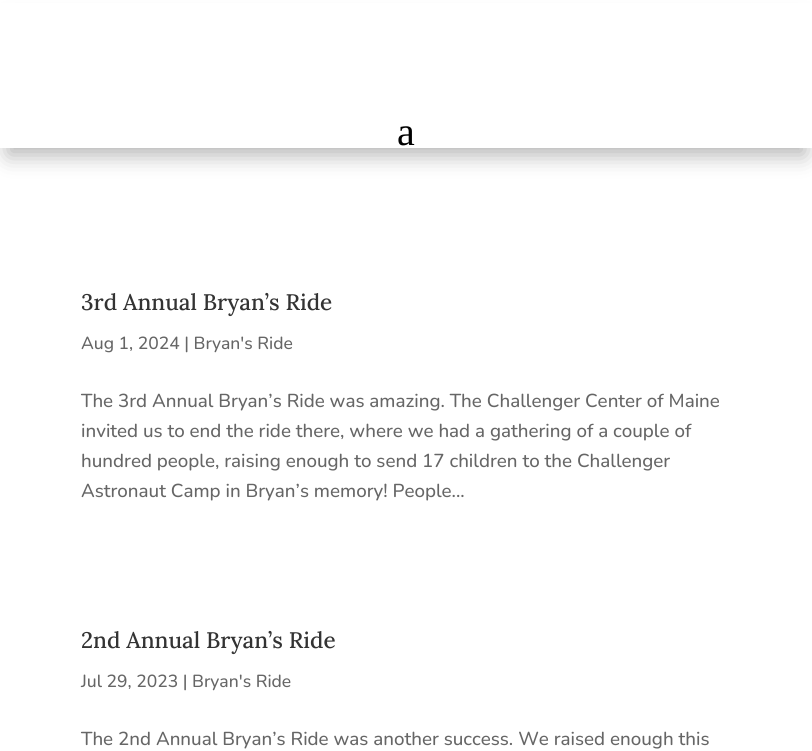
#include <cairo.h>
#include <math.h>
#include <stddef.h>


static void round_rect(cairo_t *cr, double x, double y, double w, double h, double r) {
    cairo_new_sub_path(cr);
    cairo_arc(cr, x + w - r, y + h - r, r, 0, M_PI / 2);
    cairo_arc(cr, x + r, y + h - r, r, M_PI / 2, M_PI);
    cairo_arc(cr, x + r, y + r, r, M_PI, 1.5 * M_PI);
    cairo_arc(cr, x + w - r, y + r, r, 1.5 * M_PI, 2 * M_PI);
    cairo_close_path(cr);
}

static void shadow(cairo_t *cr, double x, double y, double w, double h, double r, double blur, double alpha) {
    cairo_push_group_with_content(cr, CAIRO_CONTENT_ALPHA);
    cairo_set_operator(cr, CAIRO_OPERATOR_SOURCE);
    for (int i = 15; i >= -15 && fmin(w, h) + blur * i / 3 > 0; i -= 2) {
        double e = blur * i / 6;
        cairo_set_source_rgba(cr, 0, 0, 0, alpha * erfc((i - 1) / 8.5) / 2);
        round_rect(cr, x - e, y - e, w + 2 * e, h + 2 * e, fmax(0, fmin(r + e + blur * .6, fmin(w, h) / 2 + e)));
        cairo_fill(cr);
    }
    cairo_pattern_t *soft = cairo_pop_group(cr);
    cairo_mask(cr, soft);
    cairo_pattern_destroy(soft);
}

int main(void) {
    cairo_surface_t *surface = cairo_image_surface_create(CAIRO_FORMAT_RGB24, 812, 751);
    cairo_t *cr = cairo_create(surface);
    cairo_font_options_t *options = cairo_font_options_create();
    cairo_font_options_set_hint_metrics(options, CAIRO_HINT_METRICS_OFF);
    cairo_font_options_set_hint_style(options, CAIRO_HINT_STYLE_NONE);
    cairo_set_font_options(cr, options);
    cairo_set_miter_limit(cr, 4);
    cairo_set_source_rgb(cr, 1, 1, 1);
    cairo_paint(cr);
    cairo_set_source_rgb(cr, 0, 0, 0);
    shadow(cr, 8, 23, 797, 132, 0, 11, 0.3);
    cairo_set_source_rgb(cr, 1, 1, 1);
    cairo_rectangle(cr, 0, 3, 812, 145);
    cairo_fill(cr);
    cairo_select_font_face(cr, "Liberation Serif", CAIRO_FONT_SLANT_NORMAL, CAIRO_FONT_WEIGHT_NORMAL);
    cairo_set_font_size(cr, 40);
    cairo_set_source_rgb(cr, 0, 0, 0);
    cairo_move_to(cr, 397, 145);
    cairo_show_text(cr, "a");
    cairo_select_font_face(cr, "Lora Medium", CAIRO_FONT_SLANT_NORMAL, CAIRO_FONT_WEIGHT_NORMAL);
    cairo_set_font_size(cr, 22.5);
    cairo_set_source_rgb(cr, 0.2, 0.2, 0.2);
    cairo_move_to(cr, 81, 310);
    cairo_show_text(cr, "3rd Annual Bryan’s Ride");
    cairo_select_font_face(cr, "Nunito Medium", CAIRO_FONT_SLANT_NORMAL, CAIRO_FONT_WEIGHT_NORMAL);
    cairo_set_font_size(cr, 17.5);
    cairo_set_source_rgb(cr, 0.4, 0.4, 0.4);
    cairo_move_to(cr, 81, 349);
    cairo_show_text(cr, "Aug 1, 2024 | Bryan's Ride");
    cairo_set_font_size(cr, 18.75);
    cairo_move_to(cr, 81, 407);
    cairo_show_text(cr, "The 3rd Annual Bryan’s Ride was amazing. The Challenger Center of Maine");
    cairo_move_to(cr, 81, 437);
    cairo_show_text(cr, "invited us to end the ride there, where we had a gathering of a couple of");
    cairo_move_to(cr, 81, 467);
    cairo_show_text(cr, "hundred people, raising enough to send 17 children to the Challenger");
    cairo_move_to(cr, 81, 497);
    cairo_show_text(cr, "Astronaut Camp in Bryan’s memory! People...");
    cairo_select_font_face(cr, "Lora Medium", CAIRO_FONT_SLANT_NORMAL, CAIRO_FONT_WEIGHT_NORMAL);
    cairo_set_font_size(cr, 22.5);
    cairo_set_source_rgb(cr, 0.2, 0.2, 0.2);
    cairo_move_to(cr, 81, 648);
    cairo_show_text(cr, "2nd Annual Bryan’s Ride");
    cairo_select_font_face(cr, "Nunito Medium", CAIRO_FONT_SLANT_NORMAL, CAIRO_FONT_WEIGHT_NORMAL);
    cairo_set_font_size(cr, 17.5);
    cairo_set_source_rgb(cr, 0.4, 0.4, 0.4);
    cairo_move_to(cr, 81, 687);
    cairo_show_text(cr, "Jul 29, 2023 | Bryan's Ride");
    cairo_set_font_size(cr, 18.75);
    cairo_move_to(cr, 81, 745);
    cairo_show_text(cr, "The 2nd Annual Bryan’s Ride was another success. We raised enough this");
    cairo_surface_write_to_png(surface, "page.png");
    cairo_font_options_destroy(options);
    cairo_destroy(cr);
    cairo_surface_destroy(surface);
    return 0;
}
